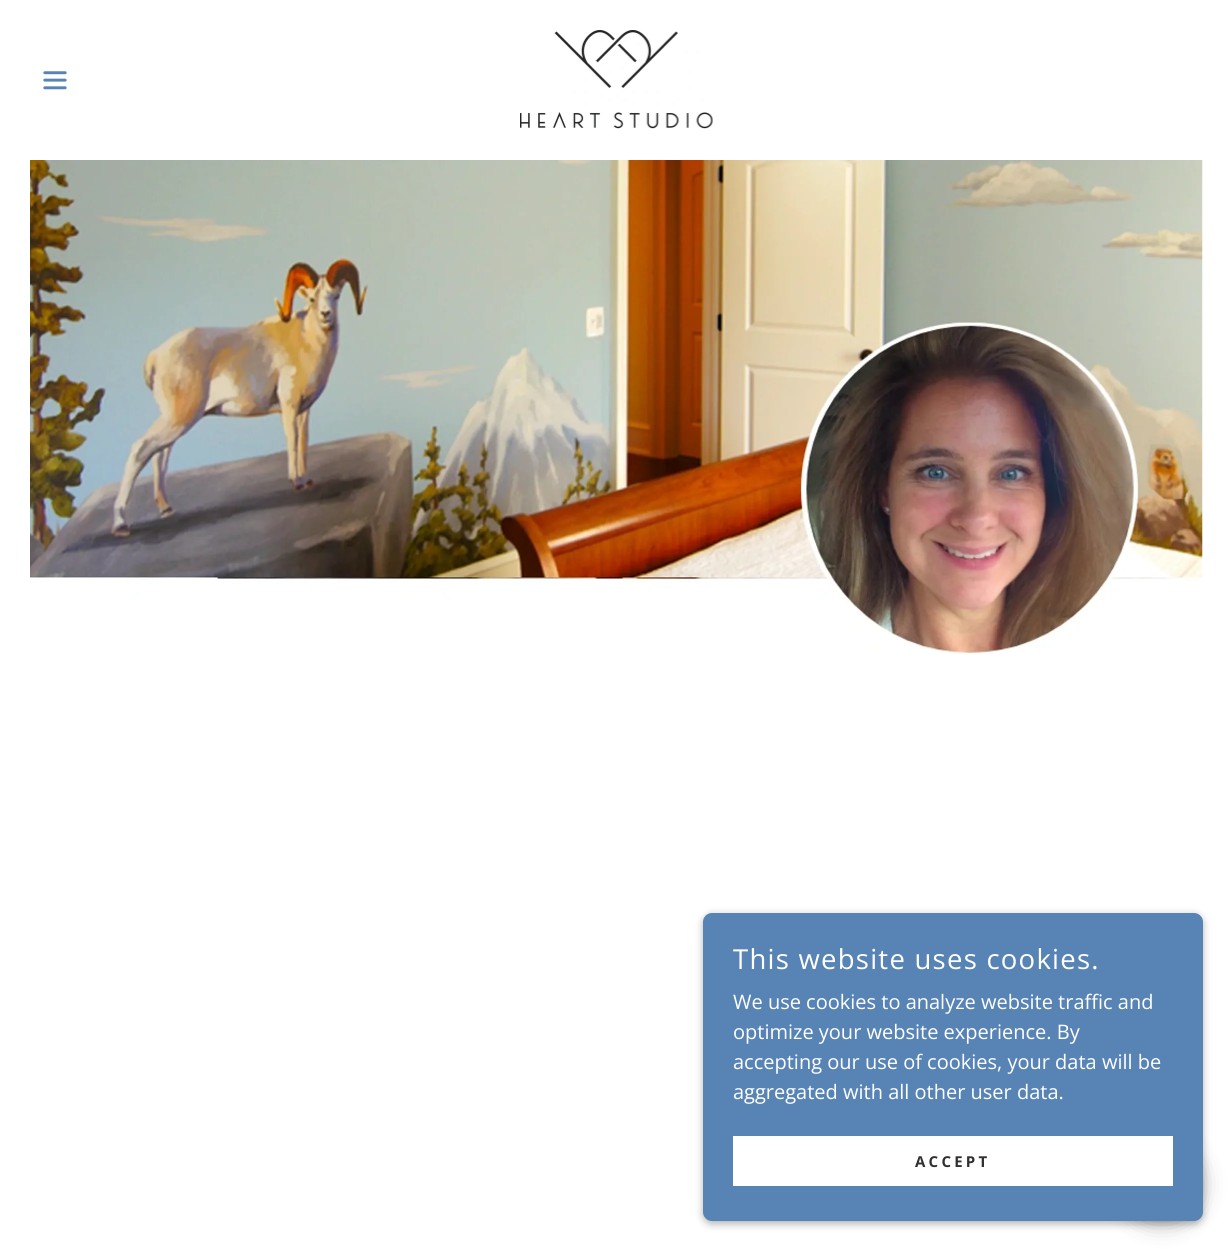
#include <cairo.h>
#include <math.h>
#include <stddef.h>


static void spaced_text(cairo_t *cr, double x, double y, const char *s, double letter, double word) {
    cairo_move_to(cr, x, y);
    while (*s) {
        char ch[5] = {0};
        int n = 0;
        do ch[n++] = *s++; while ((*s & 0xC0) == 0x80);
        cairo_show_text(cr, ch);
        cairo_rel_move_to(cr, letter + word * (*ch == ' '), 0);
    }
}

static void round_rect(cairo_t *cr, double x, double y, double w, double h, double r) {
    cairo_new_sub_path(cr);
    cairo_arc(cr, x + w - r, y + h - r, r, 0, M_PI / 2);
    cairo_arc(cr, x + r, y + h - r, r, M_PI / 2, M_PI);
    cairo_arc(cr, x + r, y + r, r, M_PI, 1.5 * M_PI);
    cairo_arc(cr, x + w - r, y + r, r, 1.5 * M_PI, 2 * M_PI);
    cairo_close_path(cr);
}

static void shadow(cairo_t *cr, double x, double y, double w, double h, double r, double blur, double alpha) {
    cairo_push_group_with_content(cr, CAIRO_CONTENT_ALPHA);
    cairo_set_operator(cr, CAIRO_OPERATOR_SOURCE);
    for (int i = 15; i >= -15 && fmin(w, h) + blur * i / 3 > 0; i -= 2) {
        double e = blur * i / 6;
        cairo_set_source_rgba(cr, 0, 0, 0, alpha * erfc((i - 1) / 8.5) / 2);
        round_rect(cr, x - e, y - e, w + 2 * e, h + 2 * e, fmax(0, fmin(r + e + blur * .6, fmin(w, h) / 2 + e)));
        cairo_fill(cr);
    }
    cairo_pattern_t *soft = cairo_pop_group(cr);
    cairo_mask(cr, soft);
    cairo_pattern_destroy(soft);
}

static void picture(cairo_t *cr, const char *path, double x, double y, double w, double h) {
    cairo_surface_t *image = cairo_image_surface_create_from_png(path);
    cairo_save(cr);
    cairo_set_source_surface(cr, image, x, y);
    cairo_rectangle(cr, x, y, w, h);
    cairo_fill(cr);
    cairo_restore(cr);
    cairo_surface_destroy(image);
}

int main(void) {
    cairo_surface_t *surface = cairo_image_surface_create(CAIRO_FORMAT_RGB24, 1232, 1251);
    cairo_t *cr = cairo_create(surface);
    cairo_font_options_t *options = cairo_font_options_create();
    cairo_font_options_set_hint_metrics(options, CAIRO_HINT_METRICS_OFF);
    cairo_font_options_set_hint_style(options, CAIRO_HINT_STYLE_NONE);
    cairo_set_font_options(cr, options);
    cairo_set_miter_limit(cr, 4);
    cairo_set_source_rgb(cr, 1, 1, 1);
    cairo_paint(cr);
    picture(cr, "img1.png", 43, 71, 24, 19);
    picture(cr, "img2.png", 520, 30, 193, 99);
    picture(cr, "img3.png", 30, 160, 1173, 494);
    cairo_set_source_rgb(cr, 0, 0, 0);
    shadow(cr, 703, 915, 500, 309, 9, 4, 0.3);
    shadow(cr, 1121, 1144, 82, 81, 40.5, 11, 0.25);
    cairo_set_source_rgb(cr, 0.341, 0.518, 0.71);
    round_rect(cr, 703, 913, 500, 308, 9);
    cairo_fill(cr);
    cairo_select_font_face(cr, "Open Sans", CAIRO_FONT_SLANT_NORMAL, CAIRO_FONT_WEIGHT_NORMAL);
    cairo_set_font_size(cr, 27.5);
    cairo_set_source_rgb(cr, 1, 1, 1);
    spaced_text(cr, 733, 969, "This website uses cookies.", 1.25, 0);
    cairo_set_font_size(cr, 20);
    cairo_move_to(cr, 733, 1009);
    cairo_show_text(cr, "We use cookies to analyze website traffic and");
    cairo_move_to(cr, 733, 1039);
    cairo_show_text(cr, "optimize your website experience. By");
    cairo_move_to(cr, 733, 1069);
    cairo_show_text(cr, "accepting our use of cookies, your data will be");
    cairo_move_to(cr, 733, 1099);
    cairo_show_text(cr, "aggregated with all other user data.");
    cairo_rectangle(cr, 733, 1136, 440, 50);
    cairo_fill(cr);
    cairo_select_font_face(cr, "Open Sans", CAIRO_FONT_SLANT_NORMAL, CAIRO_FONT_WEIGHT_BOLD);
    cairo_set_font_size(cr, 15);
    cairo_set_source_rgb(cr, 0.188, 0.188, 0.188);
    spaced_text(cr, 915, 1167, "ACCEPT", 3.25, 0);
    cairo_surface_write_to_png(surface, "page.png");
    cairo_font_options_destroy(options);
    cairo_destroy(cr);
    cairo_surface_destroy(surface);
    return 0;
}
